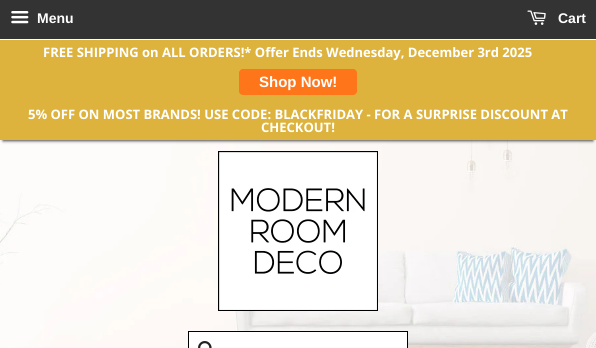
#include <cairo.h>
#include <math.h>
#include <stddef.h>


static void round_rect(cairo_t *cr, double x, double y, double w, double h, double r) {
    cairo_new_sub_path(cr);
    cairo_arc(cr, x + w - r, y + h - r, r, 0, M_PI / 2);
    cairo_arc(cr, x + r, y + h - r, r, M_PI / 2, M_PI);
    cairo_arc(cr, x + r, y + r, r, M_PI, 1.5 * M_PI);
    cairo_arc(cr, x + w - r, y + r, r, 1.5 * M_PI, 2 * M_PI);
    cairo_close_path(cr);
}

static void shadow(cairo_t *cr, double x, double y, double w, double h, double r, double blur, double alpha) {
    cairo_push_group_with_content(cr, CAIRO_CONTENT_ALPHA);
    cairo_set_operator(cr, CAIRO_OPERATOR_SOURCE);
    for (int i = 15; i >= -15 && fmin(w, h) + blur * i / 3 > 0; i -= 2) {
        double e = blur * i / 6;
        cairo_set_source_rgba(cr, 0, 0, 0, alpha * erfc((i - 1) / 8.5) / 2);
        round_rect(cr, x - e, y - e, w + 2 * e, h + 2 * e, fmax(0, fmin(r + e + blur * .6, fmin(w, h) / 2 + e)));
        cairo_fill(cr);
    }
    cairo_pattern_t *soft = cairo_pop_group(cr);
    cairo_mask(cr, soft);
    cairo_pattern_destroy(soft);
}

static void picture(cairo_t *cr, const char *path, double x, double y, double w, double h) {
    cairo_surface_t *image = cairo_image_surface_create_from_png(path);
    cairo_save(cr);
    cairo_set_source_surface(cr, image, x, y);
    cairo_rectangle(cr, x, y, w, h);
    cairo_fill(cr);
    cairo_restore(cr);
    cairo_surface_destroy(image);
}

int main(void) {
    cairo_surface_t *surface = cairo_image_surface_create(CAIRO_FORMAT_RGB24, 596, 348);
    cairo_t *cr = cairo_create(surface);
    cairo_font_options_t *options = cairo_font_options_create();
    cairo_font_options_set_hint_metrics(options, CAIRO_HINT_METRICS_OFF);
    cairo_font_options_set_hint_style(options, CAIRO_HINT_STYLE_NONE);
    cairo_set_font_options(cr, options);
    cairo_set_miter_limit(cr, 4);
    cairo_set_source_rgb(cr, 1, 1, 1);
    cairo_paint(cr);
    cairo_set_source_rgb(cr, 0.2, 0.2, 0.2);
    cairo_rectangle(cr, 0, 0, 596, 39);
    cairo_fill(cr);
    picture(cr, "img1.png", 11, 11, 18, 13);
    cairo_select_font_face(cr, "Liberation Sans", CAIRO_FONT_SLANT_NORMAL, CAIRO_FONT_WEIGHT_BOLD);
    cairo_set_font_size(cr, 14);
    cairo_set_source_rgb(cr, 1, 1, 1);
    cairo_move_to(cr, 37, 23);
    cairo_show_text(cr, "Menu");
    picture(cr, "img2.png", 527, 10, 19, 15);
    cairo_move_to(cr, 558, 23);
    cairo_show_text(cr, "Cart");
    picture(cr, "img3.png", 0, 140, 596, 208);
    cairo_set_source_rgb(cr, 0.2, 0.2, 0.2);
    shadow(cr, 3, 47, 590, 94, 0, 1.5, 0.9);
    cairo_set_source_rgb(cr, 0.867, 0.702, 0.239);
    cairo_rectangle(cr, 0, 40, 596, 100);
    cairo_fill(cr);
    cairo_select_font_face(cr, "Open Sans", CAIRO_FONT_SLANT_NORMAL, CAIRO_FONT_WEIGHT_BOLD);
    cairo_set_font_size(cr, 13);
    cairo_set_source_rgb(cr, 1, 1, 1);
    cairo_move_to(cr, 43, 57);
    cairo_show_text(cr, "FREE SHIPPING on ALL ORDERS!* Offer Ends Wednesday, December 3rd 2025");
    cairo_set_source_rgb(cr, 1, 0.459, 0.102);
    round_rect(cr, 239, 69, 118, 26, 4);
    cairo_fill(cr);
    cairo_select_font_face(cr, "Liberation Sans", CAIRO_FONT_SLANT_NORMAL, CAIRO_FONT_WEIGHT_BOLD);
    cairo_set_font_size(cr, 15);
    cairo_set_source_rgb(cr, 1, 1, 1);
    cairo_move_to(cr, 259, 87);
    cairo_show_text(cr, "Shop Now!");
    cairo_select_font_face(cr, "Open Sans", CAIRO_FONT_SLANT_NORMAL, CAIRO_FONT_WEIGHT_BOLD);
    cairo_set_font_size(cr, 13);
    cairo_move_to(cr, 28, 119);
    cairo_show_text(cr, "5% OFF ON MOST BRANDS! USE CODE: BLACKFRIDAY - FOR A SURPRISE DISCOUNT AT");
    cairo_move_to(cr, 261, 132);
    cairo_show_text(cr, "CHECKOUT!");
    picture(cr, "img4.png", 218, 151, 160, 160);
    cairo_rectangle(cr, 188.5, 331.5, 219, 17);
    cairo_fill_preserve(cr);
    cairo_set_source_rgb(cr, 0, 0, 0);
    cairo_set_line_width(cr, 1);
    cairo_stroke(cr);
    picture(cr, "img5.png", 198, 341, 14, 7);
    cairo_surface_write_to_png(surface, "page.png");
    cairo_font_options_destroy(options);
    cairo_destroy(cr);
    cairo_surface_destroy(surface);
    return 0;
}
